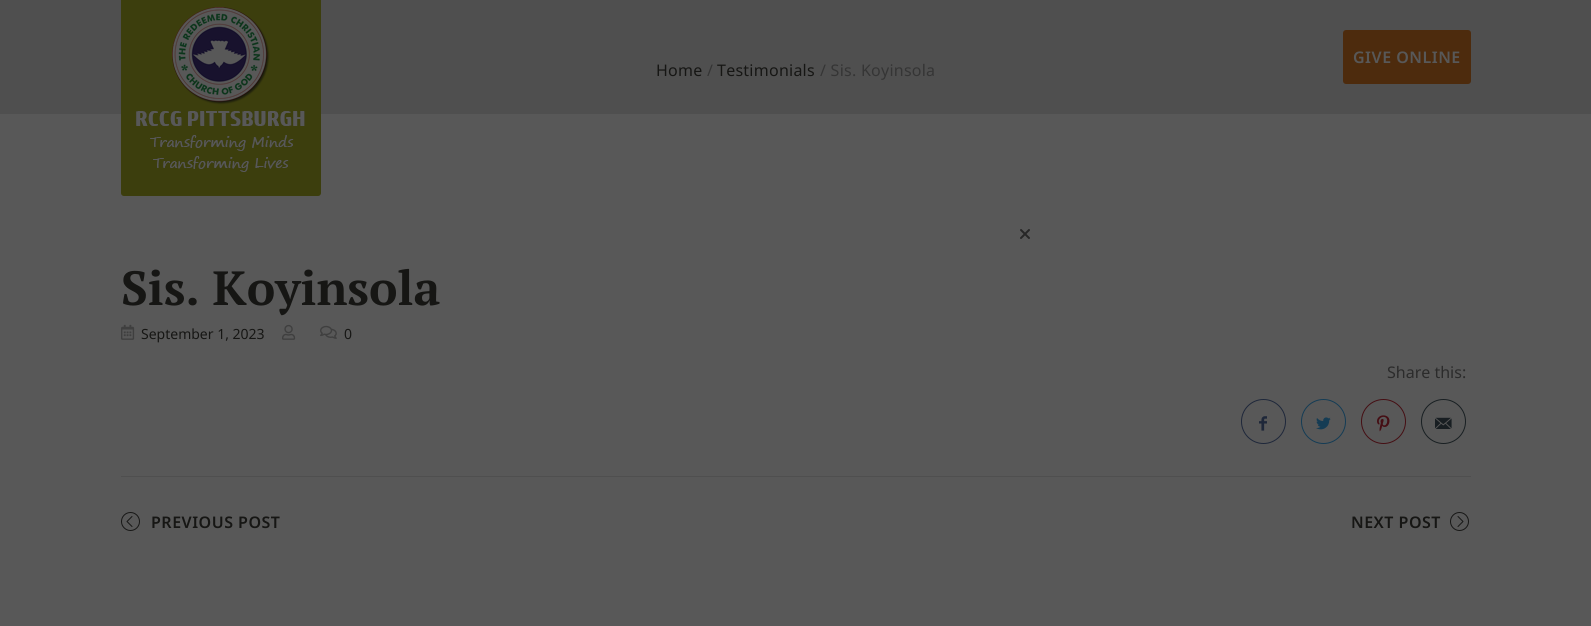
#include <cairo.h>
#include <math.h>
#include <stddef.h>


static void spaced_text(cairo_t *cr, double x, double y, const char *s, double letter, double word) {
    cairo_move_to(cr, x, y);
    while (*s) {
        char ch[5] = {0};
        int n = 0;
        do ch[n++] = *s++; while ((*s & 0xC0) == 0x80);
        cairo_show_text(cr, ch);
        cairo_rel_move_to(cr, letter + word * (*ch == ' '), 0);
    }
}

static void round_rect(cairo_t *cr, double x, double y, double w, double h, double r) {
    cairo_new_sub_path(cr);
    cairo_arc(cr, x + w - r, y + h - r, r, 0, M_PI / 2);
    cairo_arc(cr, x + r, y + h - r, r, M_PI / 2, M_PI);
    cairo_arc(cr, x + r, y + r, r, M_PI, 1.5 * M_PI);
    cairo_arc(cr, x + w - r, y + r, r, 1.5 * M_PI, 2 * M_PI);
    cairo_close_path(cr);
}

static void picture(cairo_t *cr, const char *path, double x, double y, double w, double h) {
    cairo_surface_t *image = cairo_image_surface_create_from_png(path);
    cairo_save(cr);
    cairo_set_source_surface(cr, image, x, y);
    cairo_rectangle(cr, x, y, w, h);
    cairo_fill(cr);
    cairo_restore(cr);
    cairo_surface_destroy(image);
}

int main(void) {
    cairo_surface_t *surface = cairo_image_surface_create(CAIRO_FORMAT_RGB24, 1591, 626);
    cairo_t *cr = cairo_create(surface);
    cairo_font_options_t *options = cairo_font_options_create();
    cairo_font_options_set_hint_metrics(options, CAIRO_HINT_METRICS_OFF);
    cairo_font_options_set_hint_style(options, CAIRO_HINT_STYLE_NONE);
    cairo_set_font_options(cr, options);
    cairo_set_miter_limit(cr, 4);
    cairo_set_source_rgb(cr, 0.345, 0.345, 0.345);
    cairo_paint(cr);
    cairo_set_source_rgb(cr, 0.31, 0.31, 0.31);
    cairo_rectangle(cr, 0, 0, 1591, 114);
    cairo_fill(cr);
    picture(cr, "img1.png", 121, 0, 200, 196);
    cairo_set_source_rgb(cr, 0.302, 0.169, 0.051);
    round_rect(cr, 1343, 30, 128, 54, 3);
    cairo_fill(cr);
    cairo_select_font_face(cr, "Noto Sans SemiBold", CAIRO_FONT_SLANT_NORMAL, CAIRO_FONT_WEIGHT_NORMAL);
    cairo_set_font_size(cr, 16);
    cairo_set_source_rgb(cr, 0.345, 0.345, 0.345);
    spaced_text(cr, 1353, 63, "GIVE ONLINE", 0.5, 0);
    cairo_select_font_face(cr, "Noto Sans", CAIRO_FONT_SLANT_NORMAL, CAIRO_FONT_WEIGHT_NORMAL);
    cairo_set_source_rgb(cr, 0.086, 0.086, 0.082);
    spaced_text(cr, 656, 76, "Home", 0.25, 0);
    cairo_set_source_rgb(cr, 0.208, 0.208, 0.208);
    spaced_text(cr, 707, 76, "/", 0.25, 0);
    cairo_set_source_rgb(cr, 0.086, 0.086, 0.082);
    spaced_text(cr, 717, 76, "Testimonials", 0.25, 0);
    cairo_set_source_rgb(cr, 0.208, 0.208, 0.208);
    spaced_text(cr, 820, 76, "/ Sis. Koyinsola", 0.25, 0);
    cairo_select_font_face(cr, "PT Serif", CAIRO_FONT_SLANT_NORMAL, CAIRO_FONT_WEIGHT_BOLD);
    cairo_set_font_size(cr, 48);
    cairo_set_source_rgb(cr, 0.086, 0.086, 0.082);
    cairo_move_to(cr, 121, 305);
    cairo_show_text(cr, "Sis. Koyinsola");
    picture(cr, "img2.png", 121, 324, 14, 16);
    cairo_select_font_face(cr, "Noto Sans", CAIRO_FONT_SLANT_NORMAL, CAIRO_FONT_WEIGHT_NORMAL);
    cairo_set_font_size(cr, 14);
    cairo_move_to(cr, 141, 339);
    cairo_show_text(cr, "September 1, 2023");
    picture(cr, "img3.png", 282, 324, 14, 16);
    picture(cr, "img4.png", 320, 325, 17, 14);
    cairo_move_to(cr, 344, 339);
    cairo_show_text(cr, "0");
    cairo_set_font_size(cr, 16);
    cairo_set_source_rgb(cr, 0.169, 0.169, 0.169);
    cairo_move_to(cr, 1387, 378);
    cairo_show_text(cr, "Share this:");
    cairo_new_path(cr);
    cairo_arc(cr, 1263.5, 421.5, 22, 0, 2 * M_PI);
    cairo_set_source_rgb(cr, 0.118, 0.153, 0.227);
    cairo_set_line_width(cr, 1);
    cairo_stroke(cr);
    picture(cr, "img5.png", 1259, 416, 8, 15);
    cairo_arc(cr, 1323.5, 421.5, 22, 0, 2 * M_PI);
    cairo_set_source_rgb(cr, 0.082, 0.235, 0.333);
    cairo_stroke(cr);
    picture(cr, "img6.png", 1316, 417, 15, 13);
    cairo_arc(cr, 1383.5, 421.5, 22, 0, 2 * M_PI);
    cairo_set_source_rgb(cr, 0.271, 0.055, 0.078);
    cairo_stroke(cr);
    picture(cr, "img7.png", 1377, 415, 13, 17);
    cairo_arc(cr, 1443.5, 421.5, 22, 0, 2 * M_PI);
    cairo_set_source_rgb(cr, 0.094, 0.122, 0.133);
    cairo_stroke(cr);
    picture(cr, "img8.png", 1435, 417, 17, 12);
    cairo_set_source_rgb(cr, 0.31, 0.31, 0.31);
    cairo_rectangle(cr, 121, 476, 1350, 1);
    cairo_fill(cr);
    picture(cr, "img9.png", 121, 512, 19, 19);
    cairo_select_font_face(cr, "Noto Sans SemiBold", CAIRO_FONT_SLANT_NORMAL, CAIRO_FONT_WEIGHT_NORMAL);
    cairo_set_source_rgb(cr, 0.086, 0.086, 0.082);
    spaced_text(cr, 151, 528, "PREVIOUS POST", 0.5, 0);
    spaced_text(cr, 1351, 528, "NEXT POST", 0.5, 0);
    picture(cr, "img10.png", 1450, 512, 19, 19);
    picture(cr, "img11.png", 1020, 229, 10, 10);
    cairo_surface_write_to_png(surface, "page.png");
    cairo_font_options_destroy(options);
    cairo_destroy(cr);
    cairo_surface_destroy(surface);
    return 0;
}
